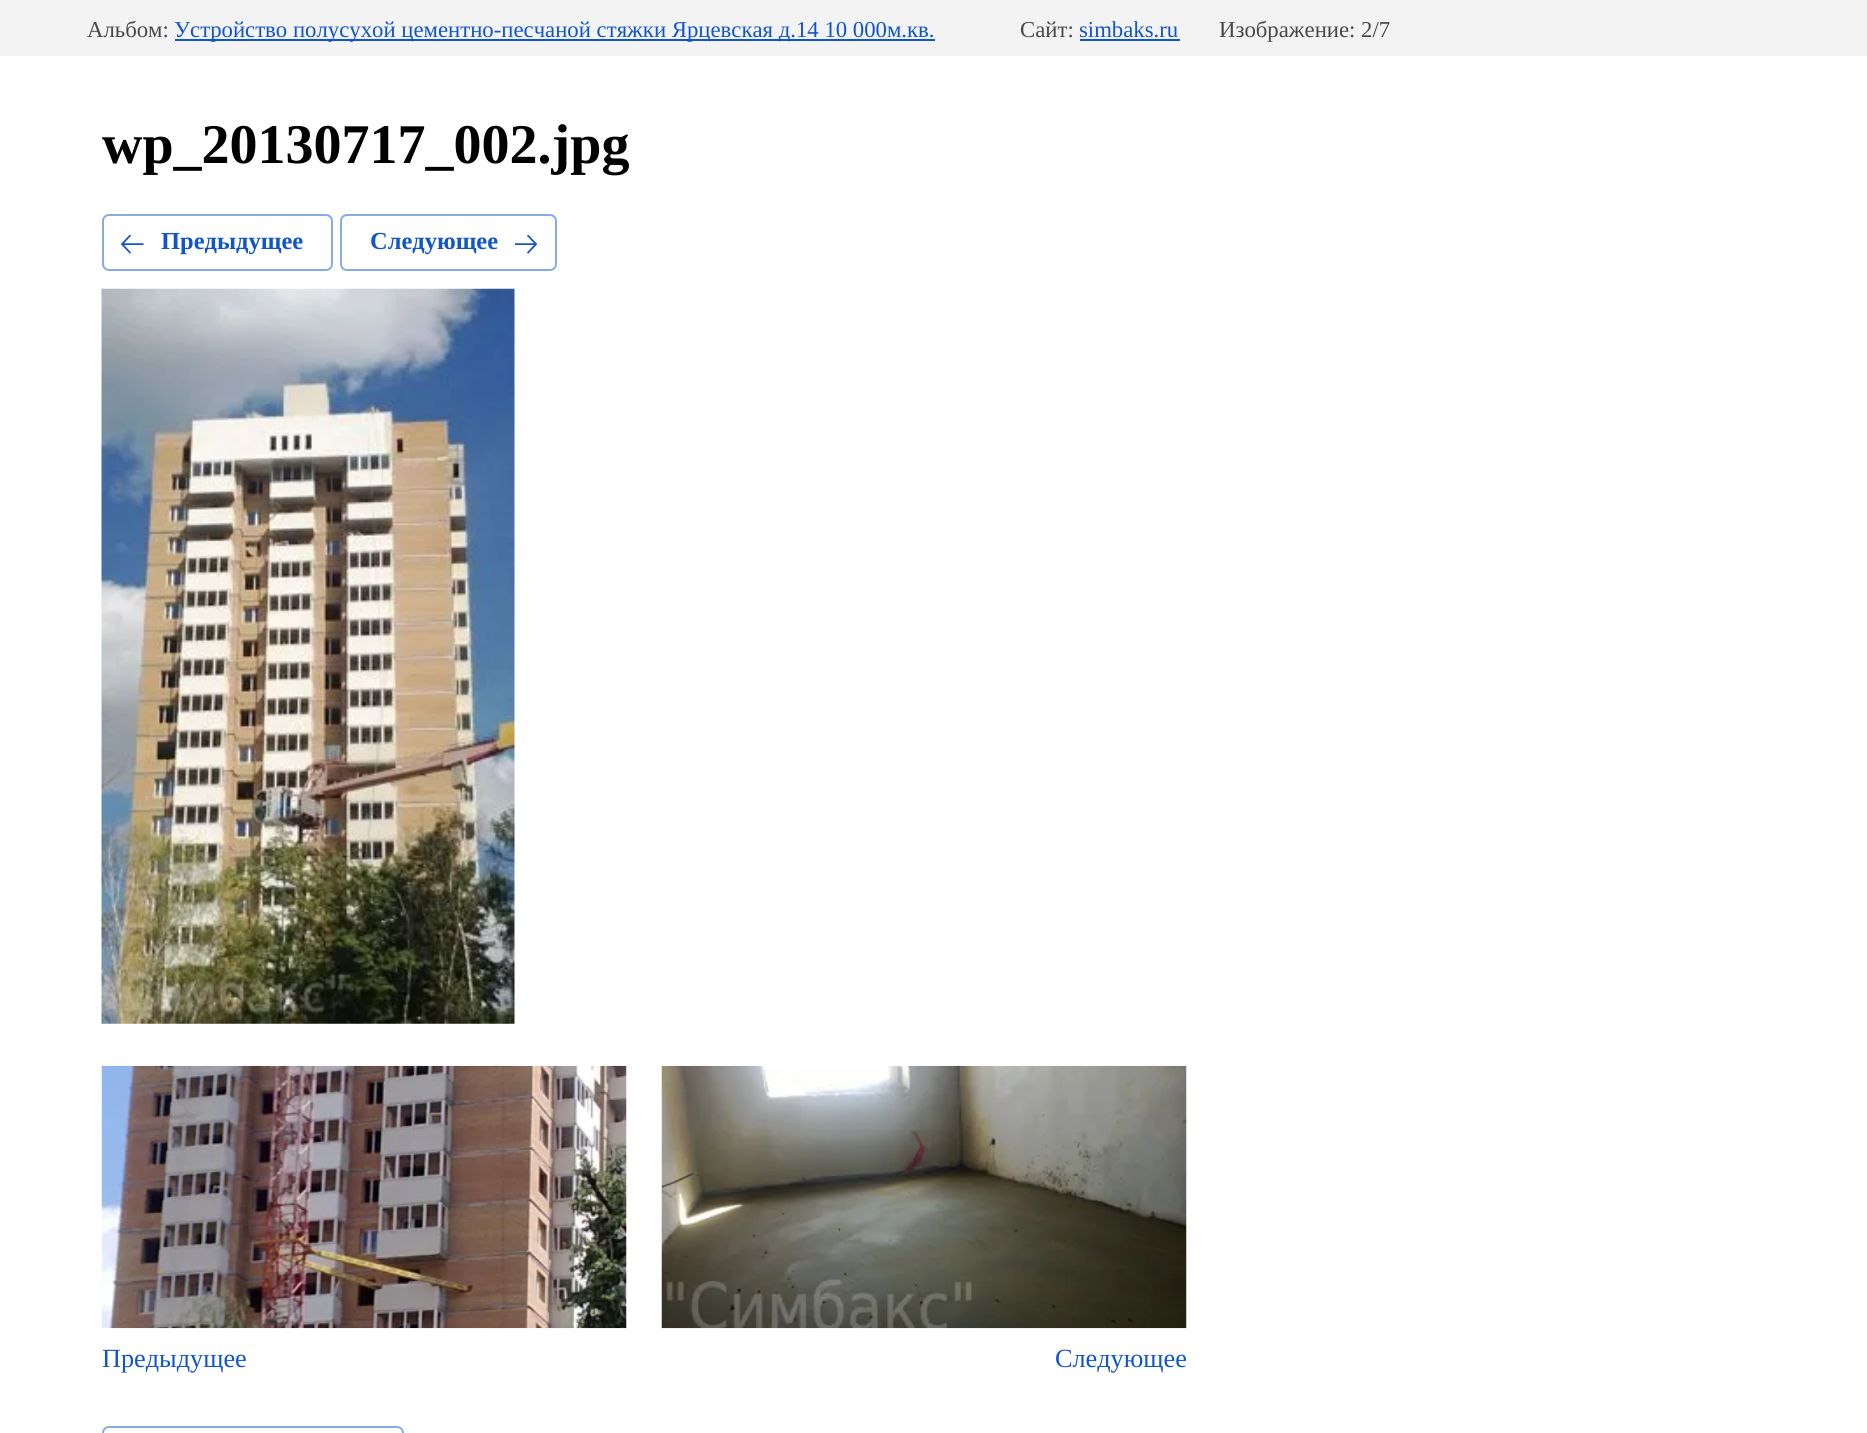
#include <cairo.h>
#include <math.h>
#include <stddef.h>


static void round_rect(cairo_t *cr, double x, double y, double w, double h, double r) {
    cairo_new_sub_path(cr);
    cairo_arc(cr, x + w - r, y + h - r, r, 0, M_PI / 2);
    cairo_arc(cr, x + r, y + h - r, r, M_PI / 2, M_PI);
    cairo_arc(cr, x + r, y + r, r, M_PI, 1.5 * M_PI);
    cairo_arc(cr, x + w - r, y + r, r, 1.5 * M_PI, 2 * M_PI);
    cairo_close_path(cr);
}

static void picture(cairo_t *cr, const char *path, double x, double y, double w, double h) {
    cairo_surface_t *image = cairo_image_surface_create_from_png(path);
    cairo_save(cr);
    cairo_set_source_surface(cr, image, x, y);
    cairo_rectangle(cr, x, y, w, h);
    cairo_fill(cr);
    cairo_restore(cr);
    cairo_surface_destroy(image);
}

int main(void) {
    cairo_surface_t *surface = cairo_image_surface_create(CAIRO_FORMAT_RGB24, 1867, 1433);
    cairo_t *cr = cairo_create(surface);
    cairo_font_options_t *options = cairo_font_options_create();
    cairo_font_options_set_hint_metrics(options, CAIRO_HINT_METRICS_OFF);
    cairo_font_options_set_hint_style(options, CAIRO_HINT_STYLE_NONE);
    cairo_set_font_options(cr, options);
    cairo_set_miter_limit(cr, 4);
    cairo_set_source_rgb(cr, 1, 1, 1);
    cairo_paint(cr);
    cairo_set_source_rgb(cr, 0.953, 0.953, 0.953);
    cairo_rectangle(cr, 0, 0, 1867, 56);
    cairo_fill(cr);
    cairo_select_font_face(cr, "Liberation Serif", CAIRO_FONT_SLANT_NORMAL, CAIRO_FONT_WEIGHT_NORMAL);
    cairo_set_font_size(cr, 22.75);
    cairo_set_source_rgb(cr, 0.282, 0.282, 0.282);
    cairo_move_to(cr, 87, 37);
    cairo_show_text(cr, "Альбом:");
    cairo_set_source_rgb(cr, 0.067, 0.333, 0.8);
    cairo_rectangle(cr, 175, 39, 760, 2);
    cairo_fill(cr);
    cairo_move_to(cr, 174, 37);
    cairo_show_text(cr, "Устройство полусухой цементно-песчаной стяжки Ярцевская д.14 10 000м.кв.");
    cairo_set_source_rgb(cr, 0.282, 0.282, 0.282);
    cairo_move_to(cr, 1020, 37);
    cairo_show_text(cr, "Сайт:");
    cairo_set_source_rgb(cr, 0.067, 0.333, 0.8);
    cairo_move_to(cr, 1079, 37);
    cairo_show_text(cr, "simbaks.ru");
    cairo_rectangle(cr, 1080, 39, 100, 2);
    cairo_fill(cr);
    cairo_set_source_rgb(cr, 0.282, 0.282, 0.282);
    cairo_move_to(cr, 1219, 37);
    cairo_show_text(cr, "Изображение: 2/7");
    cairo_select_font_face(cr, "Liberation Serif", CAIRO_FONT_SLANT_NORMAL, CAIRO_FONT_WEIGHT_BOLD);
    cairo_set_font_size(cr, 56);
    cairo_set_source_rgb(cr, 0, 0, 0);
    cairo_move_to(cr, 102, 163);
    cairo_show_text(cr, "wp_20130717_002.jpg");
    round_rect(cr, 103, 215, 229, 55, 6);
    cairo_set_source_rgb(cr, 0.533, 0.667, 0.902);
    cairo_stroke(cr);
    picture(cr, "img1.png", 121, 235, 23, 19);
    cairo_set_font_size(cr, 24.5);
    cairo_set_source_rgb(cr, 0.067, 0.333, 0.8);
    cairo_move_to(cr, 161, 249);
    cairo_show_text(cr, "Предыдущее");
    round_rect(cr, 341, 215, 215, 55, 6);
    cairo_set_source_rgb(cr, 0.533, 0.667, 0.902);
    cairo_stroke(cr);
    cairo_set_source_rgb(cr, 0.067, 0.333, 0.8);
    cairo_move_to(cr, 370, 249);
    cairo_show_text(cr, "Следующее");
    picture(cr, "img2.png", 515, 235, 22, 19);
    picture(cr, "img3.png", 101, 288, 414, 736);
    picture(cr, "img4.png", 101, 1065, 526, 264);
    cairo_select_font_face(cr, "Liberation Serif", CAIRO_FONT_SLANT_NORMAL, CAIRO_FONT_WEIGHT_NORMAL);
    cairo_set_font_size(cr, 26.25);
    cairo_move_to(cr, 102, 1367);
    cairo_show_text(cr, "Предыдущее");
    picture(cr, "img5.png", 661, 1065, 526, 264);
    cairo_move_to(cr, 1055, 1367);
    cairo_show_text(cr, "Следующее");
    round_rect(cr, 103, 1427, 300, 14, 6);
    cairo_set_source_rgb(cr, 0.533, 0.667, 0.902);
    cairo_stroke(cr);
    cairo_surface_write_to_png(surface, "page.png");
    cairo_font_options_destroy(options);
    cairo_destroy(cr);
    cairo_surface_destroy(surface);
    return 0;
}
